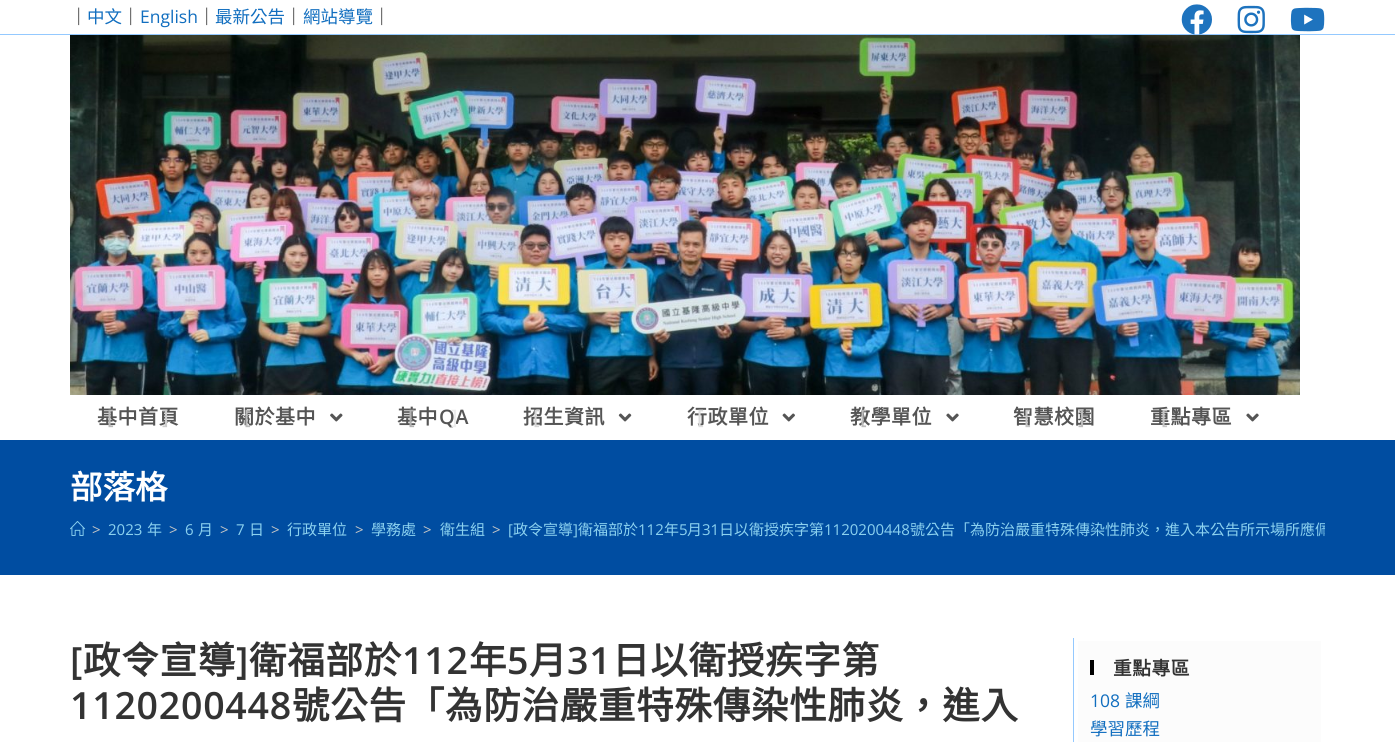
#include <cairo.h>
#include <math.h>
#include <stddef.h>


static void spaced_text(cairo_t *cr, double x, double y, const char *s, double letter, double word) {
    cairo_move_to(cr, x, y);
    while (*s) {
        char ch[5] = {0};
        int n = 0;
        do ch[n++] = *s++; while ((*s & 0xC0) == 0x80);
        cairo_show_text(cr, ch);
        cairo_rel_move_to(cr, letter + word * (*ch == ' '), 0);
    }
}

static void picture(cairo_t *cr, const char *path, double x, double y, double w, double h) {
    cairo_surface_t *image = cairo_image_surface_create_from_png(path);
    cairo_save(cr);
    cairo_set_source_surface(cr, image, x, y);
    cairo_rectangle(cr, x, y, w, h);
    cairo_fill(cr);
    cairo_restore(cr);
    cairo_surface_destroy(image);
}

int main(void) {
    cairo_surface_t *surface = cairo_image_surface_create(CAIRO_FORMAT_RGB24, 1395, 742);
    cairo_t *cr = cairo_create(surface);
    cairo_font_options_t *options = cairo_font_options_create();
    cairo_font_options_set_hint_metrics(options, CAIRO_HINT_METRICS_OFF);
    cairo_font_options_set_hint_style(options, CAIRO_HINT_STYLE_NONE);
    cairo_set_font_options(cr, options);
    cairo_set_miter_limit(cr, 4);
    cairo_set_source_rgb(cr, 1, 1, 1);
    cairo_paint(cr);
    cairo_set_source_rgb(cr, 0.58, 0.788, 1);
    cairo_rectangle(cr, 0, 34, 1395, 1);
    cairo_fill(cr);
    cairo_select_font_face(cr, "Noto Sans CJK TC", CAIRO_FONT_SLANT_NORMAL, CAIRO_FONT_WEIGHT_NORMAL);
    cairo_set_font_size(cr, 17.5);
    cairo_set_source_rgb(cr, 0.11, 0.11, 0.11);
    cairo_move_to(cr, 70, 23);
    cairo_show_text(cr, "｜");
    cairo_set_source_rgb(cr, 0.067, 0.431, 0.749);
    cairo_move_to(cr, 87, 23);
    cairo_show_text(cr, "中文");
    cairo_set_source_rgb(cr, 0.11, 0.11, 0.11);
    cairo_move_to(cr, 122, 23);
    cairo_show_text(cr, "｜");
    cairo_select_font_face(cr, "Open Sans", CAIRO_FONT_SLANT_NORMAL, CAIRO_FONT_WEIGHT_NORMAL);
    cairo_set_source_rgb(cr, 0.067, 0.431, 0.749);
    cairo_move_to(cr, 140, 23);
    cairo_show_text(cr, "English");
    cairo_select_font_face(cr, "Noto Sans CJK TC", CAIRO_FONT_SLANT_NORMAL, CAIRO_FONT_WEIGHT_NORMAL);
    cairo_set_source_rgb(cr, 0.11, 0.11, 0.11);
    cairo_move_to(cr, 198, 23);
    cairo_show_text(cr, "｜");
    cairo_set_source_rgb(cr, 0.067, 0.431, 0.749);
    cairo_move_to(cr, 215, 23);
    cairo_show_text(cr, "最新公告");
    cairo_set_source_rgb(cr, 0.11, 0.11, 0.11);
    cairo_move_to(cr, 285, 23);
    cairo_show_text(cr, "｜");
    cairo_set_source_rgb(cr, 0.067, 0.431, 0.749);
    cairo_move_to(cr, 303, 23);
    cairo_show_text(cr, "網站導覽");
    cairo_set_source_rgb(cr, 0.11, 0.11, 0.11);
    cairo_move_to(cr, 373, 23);
    cairo_show_text(cr, "｜");
    picture(cr, "img1.png", 1181, 4, 31, 31);
    picture(cr, "img2.png", 1237, 5, 28, 29);
    picture(cr, "img3.png", 1290, 7, 35, 25);
    picture(cr, "img4.png", 70, 35, 1230, 360);
    cairo_select_font_face(cr, "Noto Sans CJK TC", CAIRO_FONT_SLANT_NORMAL, CAIRO_FONT_WEIGHT_BOLD);
    cairo_set_font_size(cr, 20);
    cairo_set_source_rgb(cr, 0.333, 0.333, 0.333);
    spaced_text(cr, 97, 424, "基中首頁", 0.5, 0);
    cairo_select_font_face(cr, "Open Sans SemiBold", CAIRO_FONT_SLANT_NORMAL, CAIRO_FONT_WEIGHT_NORMAL);
    cairo_set_source_rgb(cr, 0.733, 0.733, 0.733);
    spaced_text(cr, 107, 424, "[", 0.5, 0);
    cairo_set_source_rgb(cr, 0.804, 0.804, 0.804);
    spaced_text(cr, 162, 424, "]", 0.5, 0);
    cairo_select_font_face(cr, "Noto Sans CJK TC", CAIRO_FONT_SLANT_NORMAL, CAIRO_FONT_WEIGHT_BOLD);
    cairo_set_source_rgb(cr, 0.333, 0.333, 0.333);
    spaced_text(cr, 234, 424, "關於基中", 0.5, 0);
    cairo_select_font_face(cr, "Open Sans SemiBold", CAIRO_FONT_SLANT_NORMAL, CAIRO_FONT_WEIGHT_NORMAL);
    cairo_set_source_rgb(cr, 0.733, 0.733, 0.733);
    spaced_text(cr, 244, 424, "[", 0.5, 0);
    picture(cr, "img5.png", 330, 413, 13, 9);
    cairo_select_font_face(cr, "Noto Sans CJK TC", CAIRO_FONT_SLANT_NORMAL, CAIRO_FONT_WEIGHT_BOLD);
    cairo_set_source_rgb(cr, 0.333, 0.333, 0.333);
    spaced_text(cr, 397, 424, "基中", 0.5, 0);
    cairo_select_font_face(cr, "Open Sans SemiBold", CAIRO_FONT_SLANT_NORMAL, CAIRO_FONT_WEIGHT_NORMAL);
    cairo_set_source_rgb(cr, 0.694, 0.694, 0.694);
    spaced_text(cr, 408, 424, "[", 0.5, 0);
    cairo_set_source_rgb(cr, 0.333, 0.333, 0.333);
    spaced_text(cr, 439, 424, "QA", 0.5, 0);
    cairo_set_source_rgb(cr, 0.929, 0.929, 0.929);
    spaced_text(cr, 451, 424, "]", 0.5, 0);
    cairo_select_font_face(cr, "Noto Sans CJK TC", CAIRO_FONT_SLANT_NORMAL, CAIRO_FONT_WEIGHT_BOLD);
    cairo_set_source_rgb(cr, 0.333, 0.333, 0.333);
    spaced_text(cr, 523, 424, "招生資訊", 0.5, 0);
    cairo_select_font_face(cr, "Open Sans SemiBold", CAIRO_FONT_SLANT_NORMAL, CAIRO_FONT_WEIGHT_NORMAL);
    cairo_set_source_rgb(cr, 0.839, 0.839, 0.839);
    spaced_text(cr, 533, 424, "[", 0.5, 0);
    picture(cr, "img6.png", 618, 413, 14, 9);
    cairo_select_font_face(cr, "Noto Sans CJK TC", CAIRO_FONT_SLANT_NORMAL, CAIRO_FONT_WEIGHT_BOLD);
    cairo_set_source_rgb(cr, 0.333, 0.333, 0.333);
    spaced_text(cr, 687, 424, "行政單位", 0.5, 0);
    cairo_select_font_face(cr, "Open Sans SemiBold", CAIRO_FONT_SLANT_NORMAL, CAIRO_FONT_WEIGHT_NORMAL);
    cairo_set_source_rgb(cr, 0.871, 0.871, 0.871);
    spaced_text(cr, 697, 424, "[", 0.5, 0);
    picture(cr, "img7.png", 782, 413, 13, 9);
    cairo_select_font_face(cr, "Noto Sans CJK TC", CAIRO_FONT_SLANT_NORMAL, CAIRO_FONT_WEIGHT_BOLD);
    cairo_set_source_rgb(cr, 0.333, 0.333, 0.333);
    spaced_text(cr, 850, 424, "教學單位", 0.5, 0);
    cairo_select_font_face(cr, "Open Sans SemiBold", CAIRO_FONT_SLANT_NORMAL, CAIRO_FONT_WEIGHT_NORMAL);
    cairo_set_source_rgb(cr, 0.733, 0.733, 0.733);
    spaced_text(cr, 860, 424, "[", 0.5, 0);
    picture(cr, "img8.png", 946, 413, 13, 9);
    cairo_select_font_face(cr, "Noto Sans CJK TC", CAIRO_FONT_SLANT_NORMAL, CAIRO_FONT_WEIGHT_BOLD);
    cairo_set_source_rgb(cr, 0.333, 0.333, 0.333);
    spaced_text(cr, 1013, 424, "智慧校園", 0.5, 0);
    cairo_select_font_face(cr, "Open Sans SemiBold", CAIRO_FONT_SLANT_NORMAL, CAIRO_FONT_WEIGHT_NORMAL);
    cairo_set_source_rgb(cr, 0.776, 0.776, 0.776);
    spaced_text(cr, 1024, 424, "[", 0.5, 0);
    cairo_set_source_rgb(cr, 0.733, 0.733, 0.733);
    spaced_text(cr, 1078, 424, "]", 0.5, 0);
    cairo_select_font_face(cr, "Noto Sans CJK TC", CAIRO_FONT_SLANT_NORMAL, CAIRO_FONT_WEIGHT_BOLD);
    cairo_set_source_rgb(cr, 0.333, 0.333, 0.333);
    spaced_text(cr, 1150, 424, "重點專區", 0.5, 0);
    cairo_select_font_face(cr, "Open Sans SemiBold", CAIRO_FONT_SLANT_NORMAL, CAIRO_FONT_WEIGHT_NORMAL);
    cairo_set_source_rgb(cr, 0.776, 0.776, 0.776);
    spaced_text(cr, 1161, 424, "[", 0.5, 0);
    picture(cr, "img8.png", 1246, 413, 13, 9);
    cairo_set_source_rgb(cr, 0, 0.302, 0.631);
    cairo_rectangle(cr, 0, 440, 1395, 135);
    cairo_fill(cr);
    cairo_select_font_face(cr, "Noto Sans CJK TC", CAIRO_FONT_SLANT_NORMAL, CAIRO_FONT_WEIGHT_BOLD);
    cairo_set_font_size(cr, 32.5);
    cairo_set_source_rgb(cr, 1, 1, 1);
    cairo_move_to(cr, 70, 499);
    cairo_show_text(cr, "部落格");
    picture(cr, "img9.png", 70, 521, 15, 15);
    cairo_select_font_face(cr, "Open Sans", CAIRO_FONT_SLANT_NORMAL, CAIRO_FONT_WEIGHT_NORMAL);
    cairo_set_font_size(cr, 15);
    cairo_set_source_rgb(cr, 0.776, 0.776, 0.776);
    cairo_move_to(cr, 92, 535);
    cairo_show_text(cr, ">");
    cairo_set_source_rgb(cr, 0.545, 0.82, 0.937);
    cairo_move_to(cr, 108, 535);
    cairo_show_text(cr, "2023");
    cairo_select_font_face(cr, "Noto Sans CJK TC", CAIRO_FONT_SLANT_NORMAL, CAIRO_FONT_WEIGHT_NORMAL);
    cairo_move_to(cr, 147, 535);
    cairo_show_text(cr, "年");
    cairo_select_font_face(cr, "Open Sans", CAIRO_FONT_SLANT_NORMAL, CAIRO_FONT_WEIGHT_NORMAL);
    cairo_set_source_rgb(cr, 0.776, 0.776, 0.776);
    cairo_move_to(cr, 169, 535);
    cairo_show_text(cr, ">");
    cairo_set_source_rgb(cr, 0.545, 0.82, 0.937);
    cairo_move_to(cr, 185, 535);
    cairo_show_text(cr, "6");
    cairo_select_font_face(cr, "Noto Sans CJK TC", CAIRO_FONT_SLANT_NORMAL, CAIRO_FONT_WEIGHT_NORMAL);
    cairo_move_to(cr, 198, 535);
    cairo_show_text(cr, "月");
    cairo_select_font_face(cr, "Open Sans", CAIRO_FONT_SLANT_NORMAL, CAIRO_FONT_WEIGHT_NORMAL);
    cairo_set_source_rgb(cr, 0.776, 0.776, 0.776);
    cairo_move_to(cr, 220, 535);
    cairo_show_text(cr, ">");
    cairo_set_source_rgb(cr, 0.545, 0.82, 0.937);
    cairo_move_to(cr, 236, 535);
    cairo_show_text(cr, "7");
    cairo_select_font_face(cr, "Noto Sans CJK TC", CAIRO_FONT_SLANT_NORMAL, CAIRO_FONT_WEIGHT_NORMAL);
    cairo_move_to(cr, 249, 535);
    cairo_show_text(cr, "日");
    cairo_select_font_face(cr, "Open Sans", CAIRO_FONT_SLANT_NORMAL, CAIRO_FONT_WEIGHT_NORMAL);
    cairo_set_source_rgb(cr, 0.776, 0.776, 0.776);
    cairo_move_to(cr, 271, 535);
    cairo_show_text(cr, ">");
    cairo_select_font_face(cr, "Noto Sans CJK TC", CAIRO_FONT_SLANT_NORMAL, CAIRO_FONT_WEIGHT_NORMAL);
    cairo_set_source_rgb(cr, 0.545, 0.82, 0.937);
    cairo_move_to(cr, 287, 535);
    cairo_show_text(cr, "行政單位");
    cairo_select_font_face(cr, "Open Sans", CAIRO_FONT_SLANT_NORMAL, CAIRO_FONT_WEIGHT_NORMAL);
    cairo_set_source_rgb(cr, 0.776, 0.776, 0.776);
    cairo_move_to(cr, 355, 535);
    cairo_show_text(cr, ">");
    cairo_select_font_face(cr, "Noto Sans CJK TC", CAIRO_FONT_SLANT_NORMAL, CAIRO_FONT_WEIGHT_NORMAL);
    cairo_set_source_rgb(cr, 0.545, 0.82, 0.937);
    cairo_move_to(cr, 371, 535);
    cairo_show_text(cr, "學務處");
    cairo_select_font_face(cr, "Open Sans", CAIRO_FONT_SLANT_NORMAL, CAIRO_FONT_WEIGHT_NORMAL);
    cairo_set_source_rgb(cr, 0.776, 0.776, 0.776);
    cairo_move_to(cr, 423, 535);
    cairo_show_text(cr, ">");
    cairo_select_font_face(cr, "Noto Sans CJK TC", CAIRO_FONT_SLANT_NORMAL, CAIRO_FONT_WEIGHT_NORMAL);
    cairo_set_source_rgb(cr, 0.545, 0.82, 0.937);
    cairo_move_to(cr, 440, 535);
    cairo_show_text(cr, "衛生組");
    cairo_select_font_face(cr, "Open Sans", CAIRO_FONT_SLANT_NORMAL, CAIRO_FONT_WEIGHT_NORMAL);
    cairo_set_source_rgb(cr, 0.776, 0.776, 0.776);
    cairo_move_to(cr, 492, 535);
    cairo_show_text(cr, ">");
    cairo_set_source_rgb(cr, 0.545, 0.82, 0.937);
    cairo_move_to(cr, 508, 535);
    cairo_show_text(cr, "[");
    cairo_select_font_face(cr, "Noto Sans CJK TC", CAIRO_FONT_SLANT_NORMAL, CAIRO_FONT_WEIGHT_NORMAL);
    cairo_move_to(cr, 513, 535);
    cairo_show_text(cr, "政令宣導");
    cairo_select_font_face(cr, "Open Sans", CAIRO_FONT_SLANT_NORMAL, CAIRO_FONT_WEIGHT_NORMAL);
    cairo_move_to(cr, 573, 535);
    cairo_show_text(cr, "]");
    cairo_select_font_face(cr, "Noto Sans CJK TC", CAIRO_FONT_SLANT_NORMAL, CAIRO_FONT_WEIGHT_NORMAL);
    cairo_move_to(cr, 578, 535);
    cairo_show_text(cr, "衛福部於");
    cairo_select_font_face(cr, "Open Sans", CAIRO_FONT_SLANT_NORMAL, CAIRO_FONT_WEIGHT_NORMAL);
    cairo_move_to(cr, 638, 535);
    cairo_show_text(cr, "112");
    cairo_select_font_face(cr, "Noto Sans CJK TC", CAIRO_FONT_SLANT_NORMAL, CAIRO_FONT_WEIGHT_NORMAL);
    cairo_move_to(cr, 664, 535);
    cairo_show_text(cr, "年");
    cairo_select_font_face(cr, "Open Sans", CAIRO_FONT_SLANT_NORMAL, CAIRO_FONT_WEIGHT_NORMAL);
    cairo_move_to(cr, 679, 535);
    cairo_show_text(cr, "5");
    cairo_select_font_face(cr, "Noto Sans CJK TC", CAIRO_FONT_SLANT_NORMAL, CAIRO_FONT_WEIGHT_NORMAL);
    cairo_move_to(cr, 687, 535);
    cairo_show_text(cr, "月");
    cairo_select_font_face(cr, "Open Sans", CAIRO_FONT_SLANT_NORMAL, CAIRO_FONT_WEIGHT_NORMAL);
    cairo_move_to(cr, 702, 535);
    cairo_show_text(cr, "31");
    cairo_select_font_face(cr, "Noto Sans CJK TC", CAIRO_FONT_SLANT_NORMAL, CAIRO_FONT_WEIGHT_NORMAL);
    cairo_move_to(cr, 719, 535);
    cairo_show_text(cr, "日以衛授疾字第");
    cairo_select_font_face(cr, "Open Sans", CAIRO_FONT_SLANT_NORMAL, CAIRO_FONT_WEIGHT_NORMAL);
    cairo_move_to(cr, 824, 535);
    cairo_show_text(cr, "1120200448");
    cairo_save(cr);
    cairo_rectangle(cr, 70, 510, 1255, 40);
    cairo_clip(cr);
    cairo_select_font_face(cr, "Noto Sans CJK TC", CAIRO_FONT_SLANT_NORMAL, CAIRO_FONT_WEIGHT_NORMAL);
    cairo_move_to(cr, 910, 535);
    cairo_show_text(cr, "號公告「為防治嚴重特殊傳染性肺炎，進入本公告所示場所應佩");
    cairo_restore(cr);
    cairo_set_source_rgb(cr, 0.58, 0.788, 1);
    cairo_rectangle(cr, 1073, 638, 1, 104);
    cairo_fill(cr);
    cairo_select_font_face(cr, "Open Sans SemiBold", CAIRO_FONT_SLANT_NORMAL, CAIRO_FONT_WEIGHT_NORMAL);
    cairo_set_font_size(cr, 37.5);
    cairo_set_source_rgb(cr, 0.2, 0.2, 0.2);
    spaced_text(cr, 70, 674, "[", 0.75, 0);
    cairo_select_font_face(cr, "Noto Sans CJK TC", CAIRO_FONT_SLANT_NORMAL, CAIRO_FONT_WEIGHT_BOLD);
    spaced_text(cr, 83, 674, "政令宣導", 0.75, 0);
    cairo_select_font_face(cr, "Open Sans SemiBold", CAIRO_FONT_SLANT_NORMAL, CAIRO_FONT_WEIGHT_NORMAL);
    spaced_text(cr, 236, 674, "]", 0.75, 0);
    cairo_select_font_face(cr, "Noto Sans CJK TC", CAIRO_FONT_SLANT_NORMAL, CAIRO_FONT_WEIGHT_BOLD);
    spaced_text(cr, 249, 674, "衛福部於", 0.75, 0);
    cairo_select_font_face(cr, "Open Sans SemiBold", CAIRO_FONT_SLANT_NORMAL, CAIRO_FONT_WEIGHT_NORMAL);
    spaced_text(cr, 402, 674, "112", 0.75, 0);
    cairo_select_font_face(cr, "Noto Sans CJK TC", CAIRO_FONT_SLANT_NORMAL, CAIRO_FONT_WEIGHT_BOLD);
    spaced_text(cr, 469, 674, "年", 0.75, 0);
    cairo_select_font_face(cr, "Open Sans SemiBold", CAIRO_FONT_SLANT_NORMAL, CAIRO_FONT_WEIGHT_NORMAL);
    spaced_text(cr, 507, 674, "5", 0.75, 0);
    cairo_select_font_face(cr, "Noto Sans CJK TC", CAIRO_FONT_SLANT_NORMAL, CAIRO_FONT_WEIGHT_BOLD);
    spaced_text(cr, 529, 674, "月", 0.75, 0);
    cairo_select_font_face(cr, "Open Sans SemiBold", CAIRO_FONT_SLANT_NORMAL, CAIRO_FONT_WEIGHT_NORMAL);
    spaced_text(cr, 567, 674, "31", 0.75, 0);
    cairo_select_font_face(cr, "Noto Sans CJK TC", CAIRO_FONT_SLANT_NORMAL, CAIRO_FONT_WEIGHT_BOLD);
    spaced_text(cr, 612, 674, "日以衛授疾字第", 0.75, 0);
    cairo_select_font_face(cr, "Open Sans SemiBold", CAIRO_FONT_SLANT_NORMAL, CAIRO_FONT_WEIGHT_NORMAL);
    spaced_text(cr, 70, 719, "1120200448", 0.75, 0);
    cairo_select_font_face(cr, "Noto Sans CJK TC", CAIRO_FONT_SLANT_NORMAL, CAIRO_FONT_WEIGHT_BOLD);
    spaced_text(cr, 292, 719, "號公告「為防治嚴重特殊傳染性肺炎，進入", 0.75, 0);
    cairo_set_source_rgb(cr, 0.988, 0.988, 0.988);
    cairo_rectangle(cr, 1078, 641, 243, 101);
    cairo_fill(cr);
    cairo_set_source_rgb(cr, 0, 0, 0);
    cairo_rectangle(cr, 1090, 660, 4, 15);
    cairo_fill(cr);
    cairo_set_font_size(cr, 18.75);
    cairo_set_source_rgb(cr, 0.2, 0.2, 0.2);
    spaced_text(cr, 1113, 675, "重點專區", 0.5, 0);
    cairo_select_font_face(cr, "Open Sans", CAIRO_FONT_SLANT_NORMAL, CAIRO_FONT_WEIGHT_NORMAL);
    cairo_set_font_size(cr, 17.5);
    cairo_set_source_rgb(cr, 0.067, 0.431, 0.749);
    cairo_move_to(cr, 1090, 707);
    cairo_show_text(cr, "108");
    cairo_select_font_face(cr, "Noto Sans CJK TC", CAIRO_FONT_SLANT_NORMAL, CAIRO_FONT_WEIGHT_NORMAL);
    cairo_move_to(cr, 1125, 707);
    cairo_show_text(cr, "課綱");
    cairo_move_to(cr, 1090, 735);
    cairo_show_text(cr, "學習歷程");
    cairo_surface_write_to_png(surface, "page.png");
    cairo_font_options_destroy(options);
    cairo_destroy(cr);
    cairo_surface_destroy(surface);
    return 0;
}
